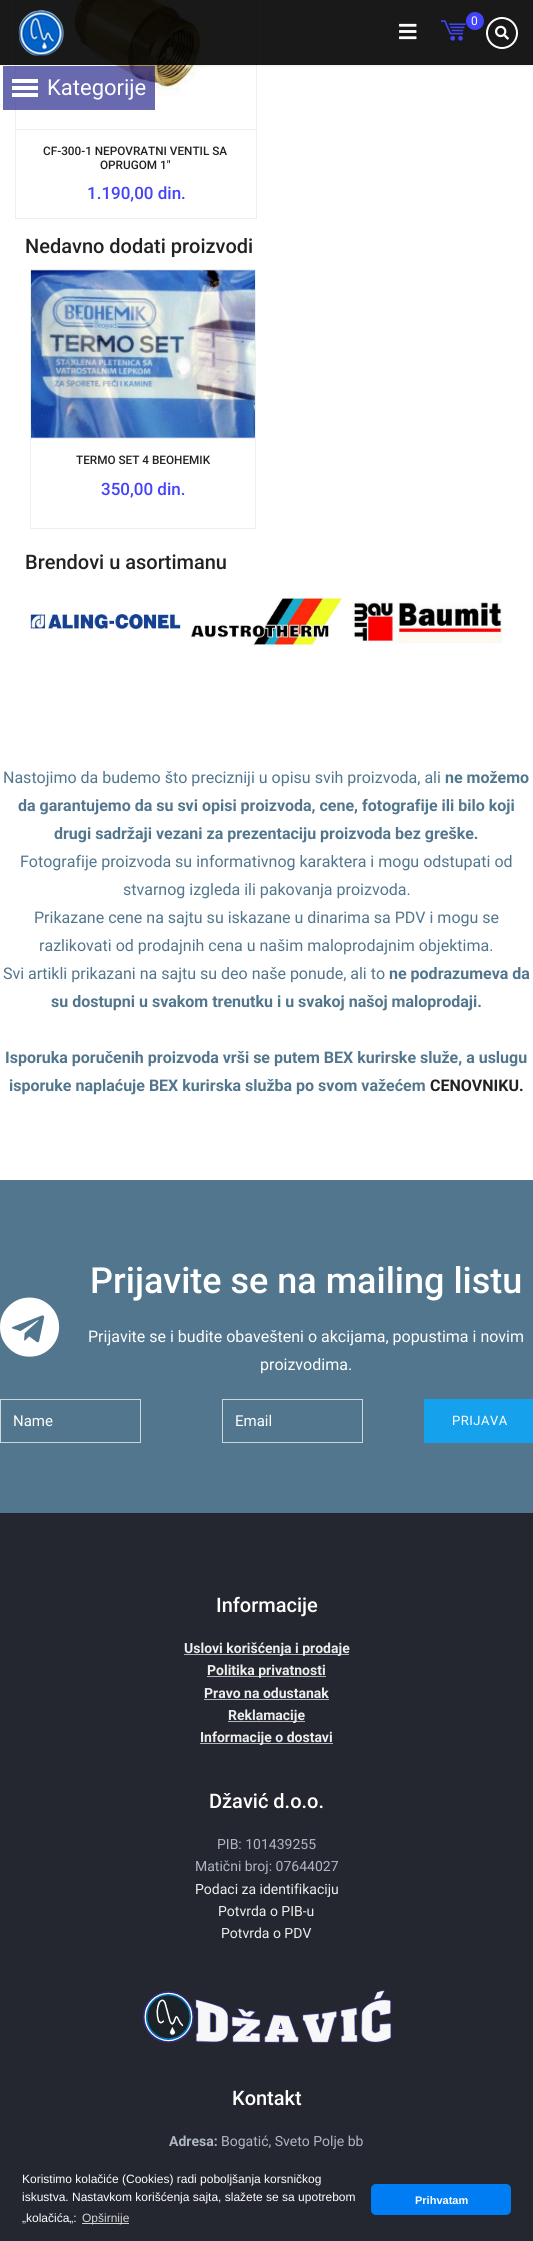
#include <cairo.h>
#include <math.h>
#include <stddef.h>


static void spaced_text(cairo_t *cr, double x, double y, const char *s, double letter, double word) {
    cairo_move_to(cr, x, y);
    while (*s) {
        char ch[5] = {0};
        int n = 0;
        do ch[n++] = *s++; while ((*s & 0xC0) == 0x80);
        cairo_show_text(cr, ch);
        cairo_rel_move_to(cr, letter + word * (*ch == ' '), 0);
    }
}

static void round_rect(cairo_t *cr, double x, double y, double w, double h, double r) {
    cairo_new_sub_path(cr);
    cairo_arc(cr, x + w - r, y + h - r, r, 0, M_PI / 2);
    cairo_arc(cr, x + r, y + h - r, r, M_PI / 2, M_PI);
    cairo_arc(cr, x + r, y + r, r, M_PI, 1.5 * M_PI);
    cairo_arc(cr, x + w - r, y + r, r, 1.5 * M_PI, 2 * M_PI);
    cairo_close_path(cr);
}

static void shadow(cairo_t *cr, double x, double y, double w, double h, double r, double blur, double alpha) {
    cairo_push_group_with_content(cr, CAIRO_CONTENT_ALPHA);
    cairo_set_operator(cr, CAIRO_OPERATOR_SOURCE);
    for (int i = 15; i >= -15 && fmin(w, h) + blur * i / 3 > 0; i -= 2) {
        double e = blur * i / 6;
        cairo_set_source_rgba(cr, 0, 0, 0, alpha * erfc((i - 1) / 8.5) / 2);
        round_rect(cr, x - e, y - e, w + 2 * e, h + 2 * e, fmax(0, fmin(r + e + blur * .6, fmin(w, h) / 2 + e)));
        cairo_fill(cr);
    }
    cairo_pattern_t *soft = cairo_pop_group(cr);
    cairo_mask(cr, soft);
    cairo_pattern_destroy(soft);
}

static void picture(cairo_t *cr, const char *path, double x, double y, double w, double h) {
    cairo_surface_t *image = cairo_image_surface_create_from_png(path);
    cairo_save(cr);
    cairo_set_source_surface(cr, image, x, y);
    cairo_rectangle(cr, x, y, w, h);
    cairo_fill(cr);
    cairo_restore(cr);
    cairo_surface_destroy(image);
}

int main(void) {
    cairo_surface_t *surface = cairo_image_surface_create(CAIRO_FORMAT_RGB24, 533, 2241);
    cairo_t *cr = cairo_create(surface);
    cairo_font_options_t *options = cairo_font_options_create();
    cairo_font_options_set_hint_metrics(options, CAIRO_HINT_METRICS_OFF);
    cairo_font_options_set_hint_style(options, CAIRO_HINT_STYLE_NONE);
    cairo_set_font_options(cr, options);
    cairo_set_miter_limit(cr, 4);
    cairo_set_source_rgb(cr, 1, 1, 1);
    cairo_paint(cr);
    cairo_rectangle(cr, 15.5, -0.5, 241, 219);
    cairo_set_source_rgb(cr, 0.937, 0.937, 0.937);
    cairo_set_line_width(cr, 1);
    cairo_stroke(cr);
    cairo_rectangle(cr, 15.5, -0.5, 241, 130);
    cairo_stroke(cr);
    picture(cr, "img5.png", 71, 0, 140, 96);
    cairo_save(cr);
    cairo_rectangle(cr, 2, 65, 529, 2);
    cairo_clip(cr);
    cairo_set_source_rgb(cr, 0, 0, 0);
    shadow(cr, 2, 4, 529, 61, 0, 2, 0.1);
    cairo_restore(cr);
    cairo_set_source_rgba(cr, 0, 0, 0, 0.9);
    cairo_rectangle(cr, 0, 0, 533, 65);
    cairo_fill(cr);
    picture(cr, "img1.png", 18, 10, 46, 46);
    picture(cr, "img2.png", 399, 23, 18, 17);
    picture(cr, "img3.png", 441, 20, 25, 21);
    cairo_set_source_rgb(cr, 0.263, 0.267, 0.973);
    cairo_arc(cr, 475, 21, 9, 0, 2 * M_PI);
    cairo_fill(cr);
    cairo_select_font_face(cr, "Roboto", CAIRO_FONT_SLANT_NORMAL, CAIRO_FONT_WEIGHT_NORMAL);
    cairo_set_font_size(cr, 12);
    cairo_set_source_rgb(cr, 1, 1, 1);
    spaced_text(cr, 471, 25, "0", 1, 0);
    cairo_new_path(cr);
    cairo_arc(cr, 502, 33, 15, 0, 2 * M_PI);
    cairo_set_line_width(cr, 2);
    cairo_stroke(cr);
    picture(cr, "img4.png", 495, 25, 14, 15);
    cairo_select_font_face(cr, "Roboto Medium", CAIRO_FONT_SLANT_NORMAL, CAIRO_FONT_WEIGHT_NORMAL);
    cairo_set_font_size(cr, 11.75);
    cairo_set_source_rgb(cr, 0.133, 0.133, 0.133);
    cairo_move_to(cr, 43, 155);
    cairo_show_text(cr, "CF-300-1 NEPOVRATNI VENTIL SA");
    cairo_move_to(cr, 100, 169);
    cairo_show_text(cr, "OPRUGOM 1\"");
    cairo_set_font_size(cr, 17);
    cairo_set_source_rgb(cr, 0.263, 0.267, 0.973);
    cairo_move_to(cr, 87, 199);
    cairo_show_text(cr, "1.190,00 din.");
    cairo_set_font_size(cr, 20);
    cairo_set_source_rgb(cr, 0.133, 0.133, 0.133);
    cairo_move_to(cr, 25, 253);
    cairo_show_text(cr, "Nedavno dodati proizvodi");
    cairo_rectangle(cr, 30.5, 269.5, 225, 259);
    cairo_set_source_rgb(cr, 0.937, 0.937, 0.937);
    cairo_set_line_width(cr, 1);
    cairo_stroke(cr);
    cairo_rectangle(cr, 30.5, 269.5, 225, 169);
    cairo_stroke(cr);
    picture(cr, "img6.png", 31, 270, 224, 168);
    cairo_set_font_size(cr, 11.75);
    cairo_set_source_rgb(cr, 0.133, 0.133, 0.133);
    cairo_move_to(cr, 76, 464);
    cairo_show_text(cr, "TERMO SET 4 BEOHEMIK");
    cairo_set_font_size(cr, 17);
    cairo_set_source_rgb(cr, 0.263, 0.267, 0.973);
    cairo_move_to(cr, 101, 495);
    cairo_show_text(cr, "350,00 din.");
    cairo_set_font_size(cr, 20);
    cairo_set_source_rgb(cr, 0.133, 0.133, 0.133);
    cairo_move_to(cr, 25, 569);
    cairo_show_text(cr, "Brendovi u asortimanu");
    picture(cr, "img7.png", 30, 614, 151, 15);
    picture(cr, "img8.png", 191, 596, 151, 51);
    picture(cr, "img9.png", 352, 601, 151, 43);
    cairo_select_font_face(cr, "Roboto", CAIRO_FONT_SLANT_NORMAL, CAIRO_FONT_WEIGHT_NORMAL);
    cairo_set_font_size(cr, 16);
    cairo_set_source_rgb(cr, 0.322, 0.463, 0.557);
    cairo_move_to(cr, 3, 783);
    cairo_show_text(cr, "Nastojimo da budemo što precizniji u opisu svih proizvoda, ali");
    cairo_select_font_face(cr, "Roboto", CAIRO_FONT_SLANT_NORMAL, CAIRO_FONT_WEIGHT_BOLD);
    cairo_move_to(cr, 445, 783);
    cairo_show_text(cr, "ne možemo");
    cairo_move_to(cr, 18, 811);
    cairo_show_text(cr, "da garantujemo da su svi opisi proizvoda, cene, fotografije ili bilo koji");
    cairo_move_to(cr, 54, 839);
    cairo_show_text(cr, "drugi sadržaji vezani za prezentaciju proizvoda bez greške.");
    cairo_select_font_face(cr, "Roboto", CAIRO_FONT_SLANT_NORMAL, CAIRO_FONT_WEIGHT_NORMAL);
    cairo_move_to(cr, 20, 867);
    cairo_show_text(cr, "Fotografije proizvoda su informativnog karaktera i mogu odstupati od");
    cairo_move_to(cr, 123, 895);
    cairo_show_text(cr, "stvarnog izgleda ili pakovanja proizvoda.");
    cairo_move_to(cr, 34, 923);
    cairo_show_text(cr, "Prikazane cene na sajtu su iskazane u dinarima sa PDV i mogu se");
    cairo_move_to(cr, 39, 951);
    cairo_show_text(cr, "razlikovati od prodajnih cena u našim maloprodajnim objektima.");
    cairo_move_to(cr, 3, 979);
    cairo_show_text(cr, "Svi artikli prikazani na sajtu su deo naše ponude, ali to");
    cairo_select_font_face(cr, "Roboto", CAIRO_FONT_SLANT_NORMAL, CAIRO_FONT_WEIGHT_BOLD);
    cairo_move_to(cr, 389, 979);
    cairo_show_text(cr, "ne podrazumeva da");
    cairo_move_to(cr, 51, 1007);
    cairo_show_text(cr, "su dostupni u svakom trenutku i u svakoj našoj maloprodaji.");
    cairo_move_to(cr, 5, 1063);
    cairo_show_text(cr, "Isporuka poručenih proizvoda vrši se putem BEX kurirske služe, a uslugu");
    cairo_move_to(cr, 9, 1091);
    cairo_show_text(cr, "isporuke naplaćuje BEX kurirska služba po svom važećem");
    cairo_set_source_rgb(cr, 0.133, 0.133, 0.133);
    cairo_move_to(cr, 430, 1091);
    cairo_show_text(cr, "CENOVNIKU.");
    cairo_set_source_rgb(cr, 0.322, 0.463, 0.557);
    cairo_rectangle(cr, 0, 1180, 533, 333);
    cairo_fill(cr);
    picture(cr, "img10.png", 0, 1297, 60, 60);
    cairo_select_font_face(cr, "Roboto Medium", CAIRO_FONT_SLANT_NORMAL, CAIRO_FONT_WEIGHT_NORMAL);
    cairo_set_font_size(cr, 36);
    cairo_set_source_rgb(cr, 1, 1, 1);
    cairo_move_to(cr, 90, 1293);
    cairo_show_text(cr, "Prijavite se na mailing listu");
    cairo_select_font_face(cr, "Roboto", CAIRO_FONT_SLANT_NORMAL, CAIRO_FONT_WEIGHT_NORMAL);
    cairo_set_font_size(cr, 16);
    cairo_move_to(cr, 88, 1342);
    cairo_show_text(cr, "Prijavite se i budite obavešteni o akcijama, popustima i novim");
    cairo_move_to(cr, 260, 1370);
    cairo_show_text(cr, "proizvodima.");
    cairo_rectangle(cr, 0.5, 1399.5, 140, 43);
    cairo_set_source_rgb(cr, 0.796, 0.839, 0.867);
    cairo_stroke(cr);
    cairo_set_font_size(cr, 15);
    cairo_set_source_rgb(cr, 1, 1, 1);
    cairo_move_to(cr, 13, 1426);
    cairo_show_text(cr, "Name");
    cairo_rectangle(cr, 222.5, 1399.5, 140, 43);
    cairo_set_source_rgb(cr, 0.796, 0.839, 0.867);
    cairo_stroke(cr);
    cairo_set_source_rgb(cr, 1, 1, 1);
    cairo_move_to(cr, 235, 1426);
    cairo_show_text(cr, "Email");
    cairo_set_source_rgb(cr, 0.086, 0.631, 0.929);
    cairo_rectangle(cr, 424, 1399, 109, 44);
    cairo_fill(cr);
    cairo_set_font_size(cr, 13);
    cairo_set_source_rgb(cr, 1, 1, 1);
    spaced_text(cr, 452, 1425, "PRIJAVA", 0.5, 0);
    cairo_set_source_rgb(cr, 0.141, 0.153, 0.184);
    cairo_rectangle(cr, 0, 1513, 533, 728);
    cairo_fill(cr);
    cairo_select_font_face(cr, "Roboto Medium", CAIRO_FONT_SLANT_NORMAL, CAIRO_FONT_WEIGHT_NORMAL);
    cairo_set_font_size(cr, 20);
    cairo_set_source_rgb(cr, 1, 1, 1);
    cairo_move_to(cr, 216, 1612);
    cairo_show_text(cr, "Informacije");
    cairo_set_source_rgb(cr, 0.682, 0.718, 0.757);
    cairo_rectangle(cr, 184, 1654, 165, 1);
    cairo_fill(cr);
    cairo_select_font_face(cr, "Roboto", CAIRO_FONT_SLANT_NORMAL, CAIRO_FONT_WEIGHT_BOLD);
    cairo_set_font_size(cr, 14);
    cairo_set_source_rgb(cr, 0.933, 0.933, 0.933);
    cairo_move_to(cr, 184, 1653);
    cairo_show_text(cr, "Uslovi korišćenja i prodaje");
    cairo_set_source_rgb(cr, 0.682, 0.718, 0.757);
    cairo_rectangle(cr, 207, 1676, 119, 1);
    cairo_fill(cr);
    cairo_set_source_rgb(cr, 0.933, 0.933, 0.933);
    cairo_move_to(cr, 207, 1675);
    cairo_show_text(cr, "Politika privatnosti");
    cairo_move_to(cr, 204, 1698);
    cairo_show_text(cr, "Pravo na odustanak");
    cairo_set_source_rgb(cr, 0.682, 0.718, 0.757);
    cairo_rectangle(cr, 204, 1699, 125, 1);
    cairo_fill(cr);
    cairo_rectangle(cr, 228, 1721, 77, 1);
    cairo_fill(cr);
    cairo_set_source_rgb(cr, 0.933, 0.933, 0.933);
    cairo_move_to(cr, 228, 1720);
    cairo_show_text(cr, "Reklamacije");
    cairo_set_source_rgb(cr, 0.682, 0.718, 0.757);
    cairo_rectangle(cr, 200, 1743, 133, 1);
    cairo_fill(cr);
    cairo_set_source_rgb(cr, 0.933, 0.933, 0.933);
    cairo_move_to(cr, 200, 1742);
    cairo_show_text(cr, "Informacije o dostavi");
    cairo_select_font_face(cr, "Roboto Medium", CAIRO_FONT_SLANT_NORMAL, CAIRO_FONT_WEIGHT_NORMAL);
    cairo_set_font_size(cr, 20);
    cairo_set_source_rgb(cr, 1, 1, 1);
    cairo_move_to(cr, 209, 1808);
    cairo_show_text(cr, "Džavić d.o.o.");
    cairo_select_font_face(cr, "Roboto", CAIRO_FONT_SLANT_NORMAL, CAIRO_FONT_WEIGHT_NORMAL);
    cairo_set_font_size(cr, 14);
    cairo_set_source_rgb(cr, 0.682, 0.718, 0.757);
    cairo_move_to(cr, 217, 1849);
    cairo_show_text(cr, "PIB: 101439255");
    cairo_move_to(cr, 195, 1871);
    cairo_show_text(cr, "Matični broj: 07644027");
    cairo_set_source_rgb(cr, 0.933, 0.933, 0.933);
    cairo_move_to(cr, 195, 1894);
    cairo_show_text(cr, "Podaci za identifikaciju");
    cairo_move_to(cr, 218, 1916);
    cairo_show_text(cr, "Potvrda o PIB-u");
    cairo_move_to(cr, 221, 1938);
    cairo_show_text(cr, "Potvrda o PDV");
    picture(cr, "img11.png", 143, 1990, 249, 53);
    cairo_select_font_face(cr, "Roboto Medium", CAIRO_FONT_SLANT_NORMAL, CAIRO_FONT_WEIGHT_NORMAL);
    cairo_set_font_size(cr, 20);
    cairo_set_source_rgb(cr, 1, 1, 1);
    cairo_move_to(cr, 232, 2105);
    cairo_show_text(cr, "Kontakt");
    cairo_select_font_face(cr, "Roboto", CAIRO_FONT_SLANT_NORMAL, CAIRO_FONT_WEIGHT_BOLD);
    cairo_set_font_size(cr, 14);
    cairo_set_source_rgb(cr, 0.682, 0.718, 0.757);
    cairo_move_to(cr, 169, 2146);
    cairo_show_text(cr, "Adresa:");
    cairo_select_font_face(cr, "Roboto", CAIRO_FONT_SLANT_NORMAL, CAIRO_FONT_WEIGHT_NORMAL);
    cairo_move_to(cr, 221, 2146);
    cairo_show_text(cr, "Bogatić, Sveto Polje bb");
    cairo_set_source_rgba(cr, 0.11, 0.11, 0.522, 0.66);
    cairo_rectangle(cr, 3, 66, 44, 44);
    cairo_fill(cr);
    cairo_set_source_rgb(cr, 1, 1, 1);
    cairo_rectangle(cr, 12, 79, 26, 4);
    cairo_fill(cr);
    cairo_rectangle(cr, 12, 86, 26, 4);
    cairo_fill(cr);
    cairo_rectangle(cr, 12, 93, 26, 4);
    cairo_fill(cr);
    cairo_set_source_rgba(cr, 0.11, 0.11, 0.522, 0.66);
    cairo_rectangle(cr, 47, 66, 108, 44);
    cairo_fill(cr);
    cairo_set_font_size(cr, 22);
    cairo_set_source_rgb(cr, 1, 1, 1);
    cairo_move_to(cr, 47, 95);
    cairo_show_text(cr, "Kategorije");
    cairo_select_font_face(cr, "Liberation Sans", CAIRO_FONT_SLANT_NORMAL, CAIRO_FONT_WEIGHT_NORMAL);
    cairo_set_font_size(cr, 12);
    cairo_move_to(cr, 22, 2183);
    cairo_show_text(cr, "Koristimo kolačiće (Cookies) radi poboljšanja korsničkog");
    cairo_move_to(cr, 22, 2201);
    cairo_show_text(cr, "iskustva. Nastavkom korišćenja sajta, slažete se sa upotrebom");
    cairo_move_to(cr, 22, 2222);
    cairo_show_text(cr, "„kolačića„:");
    cairo_set_source_rgb(cr, 0.827, 0.831, 0.835);
    cairo_rectangle(cr, 82, 2223, 47, 1);
    cairo_fill(cr);
    cairo_move_to(cr, 82, 2222);
    cairo_show_text(cr, "Opširnije");
    cairo_set_source_rgb(cr, 0, 0.49, 0.949);
    round_rect(cr, 371, 2184, 140, 31, 5);
    cairo_fill(cr);
    cairo_select_font_face(cr, "Liberation Sans", CAIRO_FONT_SLANT_NORMAL, CAIRO_FONT_WEIGHT_BOLD);
    cairo_set_font_size(cr, 11);
    cairo_set_source_rgb(cr, 1, 1, 1);
    cairo_move_to(cr, 415, 2204);
    cairo_show_text(cr, "Prihvatam");
    cairo_surface_write_to_png(surface, "page.png");
    cairo_font_options_destroy(options);
    cairo_destroy(cr);
    cairo_surface_destroy(surface);
    return 0;
}
